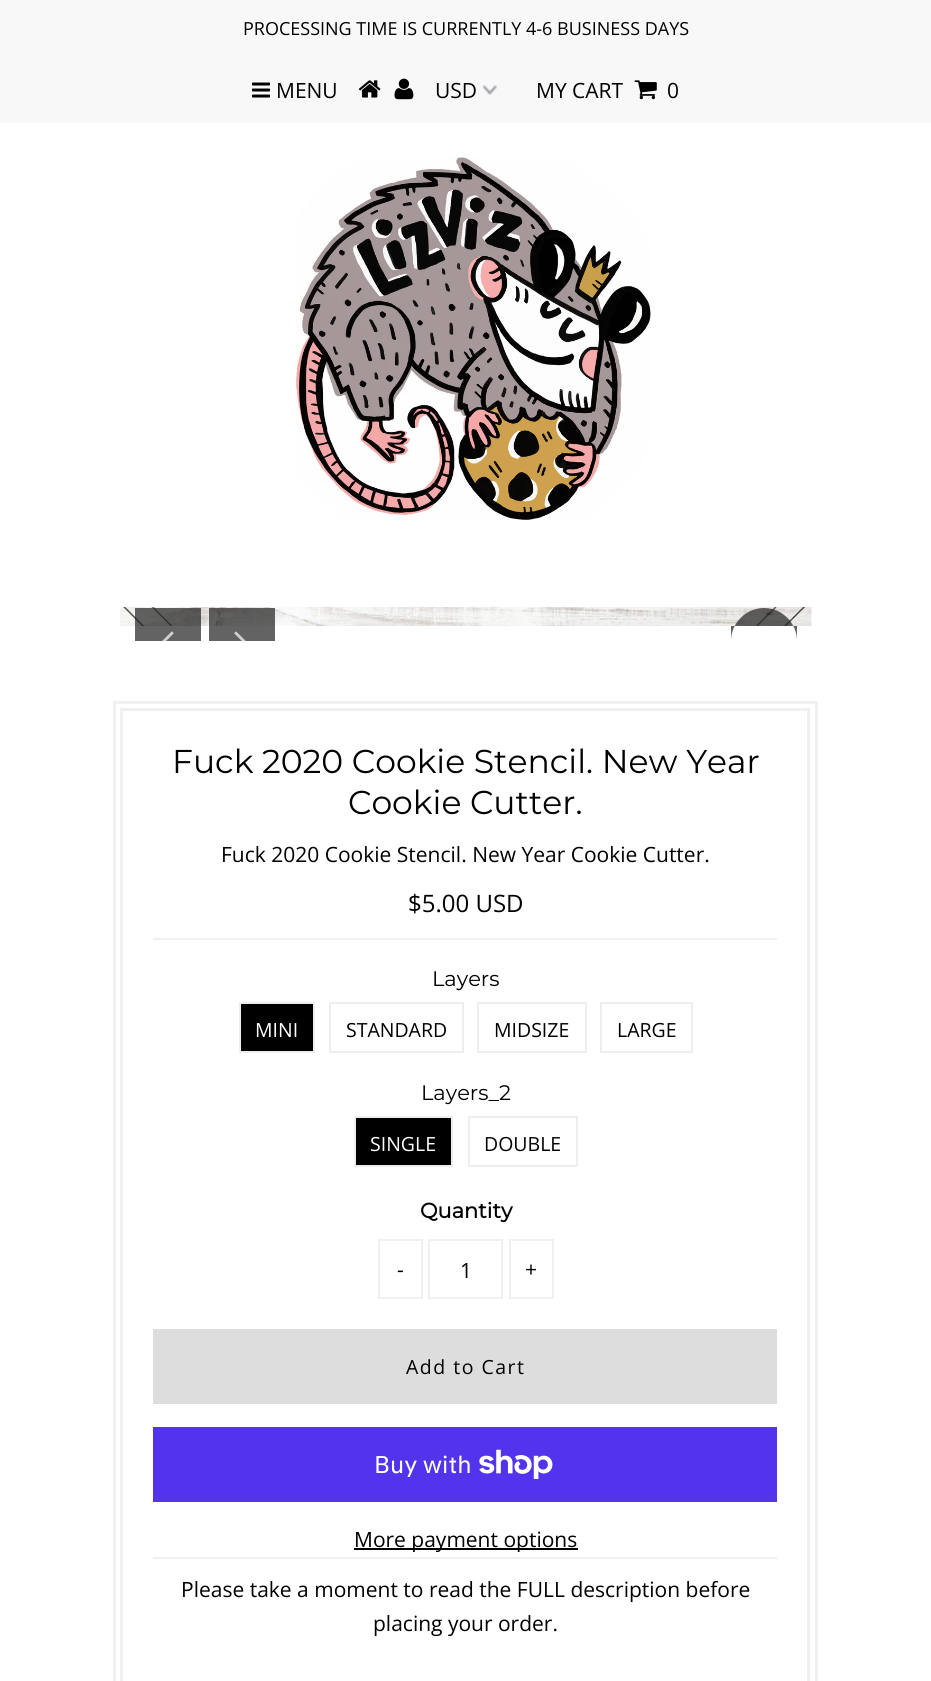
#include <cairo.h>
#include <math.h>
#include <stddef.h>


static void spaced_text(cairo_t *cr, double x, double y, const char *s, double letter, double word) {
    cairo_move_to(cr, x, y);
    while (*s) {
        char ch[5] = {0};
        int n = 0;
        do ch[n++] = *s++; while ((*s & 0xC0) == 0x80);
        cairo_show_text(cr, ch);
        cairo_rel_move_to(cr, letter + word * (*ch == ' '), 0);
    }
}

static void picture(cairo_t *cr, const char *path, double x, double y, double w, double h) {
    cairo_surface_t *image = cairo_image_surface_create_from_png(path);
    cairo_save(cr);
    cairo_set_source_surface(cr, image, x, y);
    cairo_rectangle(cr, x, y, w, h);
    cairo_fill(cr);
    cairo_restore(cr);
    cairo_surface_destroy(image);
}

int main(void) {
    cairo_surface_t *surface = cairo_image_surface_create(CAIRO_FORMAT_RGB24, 931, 1681);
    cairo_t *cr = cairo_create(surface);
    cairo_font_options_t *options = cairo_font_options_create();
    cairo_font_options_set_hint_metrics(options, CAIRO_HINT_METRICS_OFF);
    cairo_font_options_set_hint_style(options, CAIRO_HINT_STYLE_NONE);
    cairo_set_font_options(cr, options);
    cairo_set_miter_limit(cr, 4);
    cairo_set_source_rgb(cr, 1, 1, 1);
    cairo_paint(cr);
    cairo_set_source_rgb(cr, 0.969, 0.969, 0.969);
    cairo_rectangle(cr, 0, 0, 931, 123);
    cairo_fill(cr);
    cairo_select_font_face(cr, "Open Sans", CAIRO_FONT_SLANT_NORMAL, CAIRO_FONT_WEIGHT_NORMAL);
    cairo_set_font_size(cr, 18);
    cairo_set_source_rgb(cr, 0, 0, 0);
    cairo_move_to(cr, 243, 35);
    cairo_show_text(cr, "PROCESSING TIME IS CURRENTLY 4-6 BUSINESS DAYS");
    picture(cr, "img1.png", 252, 82, 18, 16);
    cairo_set_font_size(cr, 21);
    cairo_move_to(cr, 276, 98);
    cairo_show_text(cr, "MENU");
    picture(cr, "img2.png", 358, 80, 23, 18);
    picture(cr, "img3.png", 394, 78, 20, 22);
    picture(cr, "img4.png", 482, 85, 15, 10);
    cairo_move_to(cr, 435, 98);
    cairo_show_text(cr, "USD");
    cairo_move_to(cr, 536, 98);
    cairo_show_text(cr, "MY CART");
    picture(cr, "img5.png", 634, 80, 23, 20);
    cairo_move_to(cr, 667, 98);
    cairo_show_text(cr, "0");
    picture(cr, "img6.png", 295, 157, 356, 364);
    picture(cr, "img7.png", 120, 607, 692, 19);
    cairo_set_source_rgba(cr, 0.133, 0.133, 0.133, 0.7);
    cairo_new_path(cr);
    cairo_move_to(cr, 764, 608);
    cairo_curve_to(cr, 782, 608, 797, 623, 797, 641);
    cairo_line_to(cr, 797, 626);
    cairo_line_to(cr, 731, 626);
    cairo_line_to(cr, 731, 641);
    cairo_curve_to(cr, 731, 623, 746, 608, 764, 608);
    cairo_close_path(cr);
    cairo_fill(cr);
    cairo_rectangle(cr, 135, 608, 66, 33);
    cairo_fill(cr);
    picture(cr, "img8.png", 162, 631, 12, 10);
    cairo_rectangle(cr, 209, 608, 66, 33);
    cairo_fill(cr);
    picture(cr, "img9.png", 234, 631, 12, 10);
    cairo_rectangle(cr, 114.5, 702.5, 702, 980);
    cairo_set_source_rgb(cr, 0.941, 0.941, 0.941);
    cairo_set_line_width(cr, 3);
    cairo_stroke(cr);
    cairo_rectangle(cr, 121.5, 709.5, 687, 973);
    cairo_stroke(cr);
    cairo_select_font_face(cr, "Montserrat", CAIRO_FONT_SLANT_NORMAL, CAIRO_FONT_WEIGHT_NORMAL);
    cairo_set_font_size(cr, 33);
    cairo_set_source_rgb(cr, 0, 0, 0);
    cairo_move_to(cr, 172, 773);
    cairo_show_text(cr, "Fuck 2020 Cookie Stencil. New Year");
    cairo_move_to(cr, 348, 814);
    cairo_show_text(cr, "Cookie Cutter.");
    cairo_select_font_face(cr, "Open Sans", CAIRO_FONT_SLANT_NORMAL, CAIRO_FONT_WEIGHT_NORMAL);
    cairo_set_font_size(cr, 21);
    cairo_move_to(cr, 221, 862);
    cairo_show_text(cr, "Fuck 2020 Cookie Stencil. New Year Cookie Cutter.");
    cairo_set_source_rgb(cr, 0.941, 0.941, 0.941);
    cairo_rectangle(cr, 153, 1557, 624, 2);
    cairo_fill(cr);
    cairo_rectangle(cr, 153, 938, 624, 2);
    cairo_fill(cr);
    cairo_set_font_size(cr, 24);
    cairo_set_source_rgb(cr, 0, 0, 0);
    cairo_move_to(cr, 408, 912);
    cairo_show_text(cr, "$5.00 USD");
    cairo_select_font_face(cr, "Montserrat", CAIRO_FONT_SLANT_NORMAL, CAIRO_FONT_WEIGHT_NORMAL);
    cairo_set_font_size(cr, 21);
    cairo_move_to(cr, 432, 986);
    cairo_show_text(cr, "Layers");
    cairo_rectangle(cr, 240, 1003, 74, 49);
    cairo_fill_preserve(cr);
    cairo_set_source_rgb(cr, 0.933, 0.933, 0.933);
    cairo_set_line_width(cr, 2);
    cairo_stroke(cr);
    cairo_select_font_face(cr, "Open Sans", CAIRO_FONT_SLANT_NORMAL, CAIRO_FONT_WEIGHT_NORMAL);
    cairo_set_font_size(cr, 19.5);
    cairo_set_source_rgb(cr, 1, 1, 1);
    cairo_move_to(cr, 255, 1037);
    cairo_show_text(cr, "MINI");
    cairo_rectangle(cr, 330, 1003, 133, 49);
    cairo_set_source_rgb(cr, 0.933, 0.933, 0.933);
    cairo_stroke(cr);
    cairo_set_source_rgb(cr, 0, 0, 0);
    cairo_move_to(cr, 346, 1037);
    cairo_show_text(cr, "STANDARD");
    cairo_rectangle(cr, 478, 1003, 108, 49);
    cairo_set_source_rgb(cr, 0.933, 0.933, 0.933);
    cairo_stroke(cr);
    cairo_set_source_rgb(cr, 0, 0, 0);
    cairo_move_to(cr, 494, 1037);
    cairo_show_text(cr, "MIDSIZE");
    cairo_rectangle(cr, 601, 1003, 91, 49);
    cairo_set_source_rgb(cr, 0.933, 0.933, 0.933);
    cairo_stroke(cr);
    cairo_set_source_rgb(cr, 0, 0, 0);
    cairo_move_to(cr, 617, 1037);
    cairo_show_text(cr, "LARGE");
    cairo_select_font_face(cr, "Montserrat", CAIRO_FONT_SLANT_NORMAL, CAIRO_FONT_WEIGHT_NORMAL);
    cairo_set_font_size(cr, 21);
    cairo_move_to(cr, 421, 1100);
    cairo_show_text(cr, "Layers_2");
    cairo_rectangle(cr, 355, 1117, 97, 49);
    cairo_fill_preserve(cr);
    cairo_set_source_rgb(cr, 0.933, 0.933, 0.933);
    cairo_stroke(cr);
    cairo_select_font_face(cr, "Open Sans", CAIRO_FONT_SLANT_NORMAL, CAIRO_FONT_WEIGHT_NORMAL);
    cairo_set_font_size(cr, 19.5);
    cairo_set_source_rgb(cr, 1, 1, 1);
    cairo_move_to(cr, 370, 1151);
    cairo_show_text(cr, "SINGLE");
    cairo_rectangle(cr, 469, 1117, 108, 49);
    cairo_set_source_rgb(cr, 0.933, 0.933, 0.933);
    cairo_stroke(cr);
    cairo_set_source_rgb(cr, 0, 0, 0);
    cairo_move_to(cr, 484, 1151);
    cairo_show_text(cr, "DOUBLE");
    cairo_select_font_face(cr, "Montserrat", CAIRO_FONT_SLANT_NORMAL, CAIRO_FONT_WEIGHT_BOLD);
    cairo_set_font_size(cr, 21);
    cairo_move_to(cr, 420, 1218);
    cairo_show_text(cr, "Quantity");
    cairo_rectangle(cr, 379, 1240, 43, 58);
    cairo_set_source_rgb(cr, 0.941, 0.941, 0.941);
    cairo_stroke(cr);
    cairo_select_font_face(cr, "Open Sans", CAIRO_FONT_SLANT_NORMAL, CAIRO_FONT_WEIGHT_NORMAL);
    cairo_set_source_rgb(cr, 0, 0, 0);
    cairo_move_to(cr, 397, 1277);
    cairo_show_text(cr, "-");
    cairo_rectangle(cr, 429, 1240, 73, 58);
    cairo_set_source_rgb(cr, 0.941, 0.941, 0.941);
    cairo_stroke(cr);
    cairo_set_source_rgb(cr, 0, 0, 0);
    cairo_move_to(cr, 460, 1278);
    cairo_show_text(cr, "1");
    cairo_rectangle(cr, 510, 1240, 43, 58);
    cairo_set_source_rgb(cr, 0.941, 0.941, 0.941);
    cairo_stroke(cr);
    cairo_set_source_rgb(cr, 0, 0, 0);
    cairo_move_to(cr, 525, 1277);
    cairo_show_text(cr, "+");
    cairo_set_source_rgb(cr, 0.867, 0.867, 0.867);
    cairo_rectangle(cr, 153, 1329, 624, 75);
    cairo_fill(cr);
    cairo_set_font_size(cr, 19.5);
    cairo_set_source_rgb(cr, 0, 0, 0);
    spaced_text(cr, 406, 1374, "Add to Cart", 1.5, 0);
    cairo_set_source_rgb(cr, 0.329, 0.2, 0.922);
    cairo_rectangle(cr, 153, 1427, 624, 75);
    cairo_fill(cr);
    cairo_select_font_face(cr, "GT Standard", CAIRO_FONT_SLANT_NORMAL, CAIRO_FONT_WEIGHT_NORMAL);
    cairo_set_font_size(cr, 24);
    cairo_set_source_rgb(cr, 1, 1, 1);
    cairo_move_to(cr, 374, 1473);
    cairo_show_text(cr, "Buy with");
    picture(cr, "img10.png", 479, 1449, 74, 30);
    cairo_set_source_rgb(cr, 0, 0, 0);
    cairo_rectangle(cr, 354, 1548, 224, 2);
    cairo_fill(cr);
    cairo_select_font_face(cr, "Open Sans", CAIRO_FONT_SLANT_NORMAL, CAIRO_FONT_WEIGHT_NORMAL);
    cairo_set_font_size(cr, 21);
    cairo_move_to(cr, 354, 1547);
    cairo_show_text(cr, "More payment options");
    cairo_move_to(cr, 181, 1597);
    cairo_show_text(cr, "Please take a moment to read the FULL description before");
    cairo_move_to(cr, 373, 1631);
    cairo_show_text(cr, "placing your order.");
    cairo_surface_write_to_png(surface, "page.png");
    cairo_font_options_destroy(options);
    cairo_destroy(cr);
    cairo_surface_destroy(surface);
    return 0;
}
